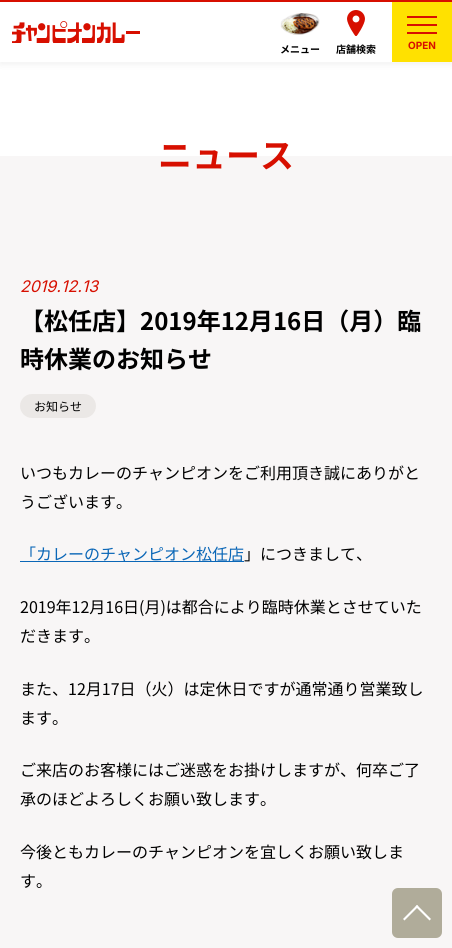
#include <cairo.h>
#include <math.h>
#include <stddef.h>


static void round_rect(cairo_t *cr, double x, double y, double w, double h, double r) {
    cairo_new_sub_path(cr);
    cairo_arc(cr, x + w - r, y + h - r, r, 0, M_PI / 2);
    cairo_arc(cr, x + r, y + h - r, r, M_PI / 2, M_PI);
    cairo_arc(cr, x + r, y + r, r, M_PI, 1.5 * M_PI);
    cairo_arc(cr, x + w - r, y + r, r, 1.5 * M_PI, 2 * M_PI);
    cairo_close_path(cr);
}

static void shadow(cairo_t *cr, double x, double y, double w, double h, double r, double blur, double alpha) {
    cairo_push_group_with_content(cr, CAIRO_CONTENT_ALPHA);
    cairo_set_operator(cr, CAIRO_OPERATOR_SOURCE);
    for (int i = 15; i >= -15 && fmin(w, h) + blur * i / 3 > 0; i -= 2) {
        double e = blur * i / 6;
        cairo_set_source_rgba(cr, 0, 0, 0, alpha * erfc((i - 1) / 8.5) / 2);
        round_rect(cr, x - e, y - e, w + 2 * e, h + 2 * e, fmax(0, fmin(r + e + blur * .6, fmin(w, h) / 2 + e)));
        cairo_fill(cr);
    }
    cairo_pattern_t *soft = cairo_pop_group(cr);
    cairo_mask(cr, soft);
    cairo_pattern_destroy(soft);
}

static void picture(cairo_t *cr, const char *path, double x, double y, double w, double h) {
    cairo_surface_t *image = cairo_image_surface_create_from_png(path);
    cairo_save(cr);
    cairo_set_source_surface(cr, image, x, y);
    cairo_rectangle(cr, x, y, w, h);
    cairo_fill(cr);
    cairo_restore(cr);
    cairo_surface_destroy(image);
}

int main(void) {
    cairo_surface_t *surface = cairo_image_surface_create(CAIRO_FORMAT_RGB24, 452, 948);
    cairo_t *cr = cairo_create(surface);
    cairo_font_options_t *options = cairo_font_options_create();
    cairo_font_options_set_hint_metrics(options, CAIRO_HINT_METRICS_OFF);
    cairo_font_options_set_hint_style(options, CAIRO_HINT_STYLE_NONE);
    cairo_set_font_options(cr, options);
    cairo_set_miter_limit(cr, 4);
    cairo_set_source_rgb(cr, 0.969, 0.961, 0.961);
    cairo_paint(cr);
    cairo_set_source_rgb(cr, 1, 1, 1);
    cairo_rectangle(cr, 0, 62, 452, 94);
    cairo_fill(cr);
    cairo_set_source_rgb(cr, 0, 0, 0);
    shadow(cr, 0, 3, 452, 62, 0, 3, 0.05);
    cairo_set_source_rgb(cr, 1, 1, 1);
    cairo_rectangle(cr, 0, 2, 392, 60);
    cairo_fill(cr);
    cairo_set_source_rgb(cr, 0.843, 0.059, 0);
    cairo_rectangle(cr, 0, 0, 452, 2);
    cairo_fill(cr);
    picture(cr, "img1.png", 12, 21, 128, 22);
    picture(cr, "img2.png", 280, 13, 40, 22);
    cairo_select_font_face(cr, "Noto Sans JP", CAIRO_FONT_SLANT_NORMAL, CAIRO_FONT_WEIGHT_BOLD);
    cairo_set_font_size(cr, 10);
    cairo_set_source_rgb(cr, 0, 0, 0);
    cairo_move_to(cr, 280, 53);
    cairo_show_text(cr, "メニュー");
    picture(cr, "img3.png", 347, 10, 18, 26);
    cairo_move_to(cr, 336, 53);
    cairo_show_text(cr, "店舗検索");
    cairo_set_source_rgb(cr, 1, 0.882, 0);
    cairo_rectangle(cr, 392, 2, 60, 60);
    cairo_fill(cr);
    cairo_set_source_rgb(cr, 0.843, 0.059, 0);
    cairo_rectangle(cr, 407, 16, 30, 2);
    cairo_fill(cr);
    cairo_rectangle(cr, 407, 24, 30, 2);
    cairo_fill(cr);
    cairo_rectangle(cr, 407, 32, 30, 2);
    cairo_fill(cr);
    cairo_select_font_face(cr, "Inter", CAIRO_FONT_SLANT_NORMAL, CAIRO_FONT_WEIGHT_BOLD);
    cairo_move_to(cr, 408, 49);
    cairo_show_text(cr, "OPEN");
    cairo_select_font_face(cr, "Noto Sans JP", CAIRO_FONT_SLANT_NORMAL, CAIRO_FONT_WEIGHT_BOLD);
    cairo_set_font_size(cr, 34);
    cairo_move_to(cr, 158, 168);
    cairo_show_text(cr, "ニュース");
    cairo_select_font_face(cr, "Inter", CAIRO_FONT_SLANT_ITALIC, CAIRO_FONT_WEIGHT_NORMAL);
    cairo_set_font_size(cr, 16);
    cairo_move_to(cr, 20, 292);
    cairo_show_text(cr, "2019.12.13");
    cairo_select_font_face(cr, "Noto Sans JP", CAIRO_FONT_SLANT_NORMAL, CAIRO_FONT_WEIGHT_BOLD);
    cairo_set_font_size(cr, 24);
    cairo_set_source_rgb(cr, 0, 0, 0);
    cairo_move_to(cr, 20, 330);
    cairo_show_text(cr, "【松任店】2019年12月16日（月）臨");
    cairo_move_to(cr, 20, 368);
    cairo_show_text(cr, "時休業のお知らせ");
    cairo_set_source_rgb(cr, 0.918, 0.91, 0.902);
    round_rect(cr, 20, 394, 76, 24, 12);
    cairo_fill(cr);
    cairo_select_font_face(cr, "Noto Sans JP", CAIRO_FONT_SLANT_NORMAL, CAIRO_FONT_WEIGHT_NORMAL);
    cairo_set_font_size(cr, 12);
    cairo_set_source_rgb(cr, 0, 0, 0);
    cairo_move_to(cr, 34, 411);
    cairo_show_text(cr, "お知らせ");
    cairo_set_font_size(cr, 16);
    cairo_move_to(cr, 20, 479);
    cairo_show_text(cr, "いつもカレーのチャンピオンをご利用頂き誠にありがと");
    cairo_move_to(cr, 20, 508);
    cairo_show_text(cr, "うございます。");
    cairo_set_source_rgb(cr, 0.043, 0.404, 0.718);
    cairo_rectangle(cr, 20, 561, 224, 1);
    cairo_fill(cr);
    cairo_move_to(cr, 20, 560);
    cairo_show_text(cr, "「カレーのチャンピオン松任店");
    cairo_set_source_rgb(cr, 0, 0, 0);
    cairo_move_to(cr, 244, 560);
    cairo_show_text(cr, "」につきまして、");
    cairo_move_to(cr, 20, 613);
    cairo_show_text(cr, "2019年12月16日(月)は都合により臨時休業とさせていた");
    cairo_move_to(cr, 20, 642);
    cairo_show_text(cr, "だきます。");
    cairo_move_to(cr, 20, 695);
    cairo_show_text(cr, "また、12月17日（火）は定休日ですが通常通り営業致し");
    cairo_move_to(cr, 20, 724);
    cairo_show_text(cr, "ます。");
    cairo_move_to(cr, 20, 776);
    cairo_show_text(cr, "ご来店のお客様にはご迷惑をお掛けしますが、何卒ご了");
    cairo_move_to(cr, 20, 805);
    cairo_show_text(cr, "承のほどよろしくお願い致します。");
    cairo_move_to(cr, 20, 858);
    cairo_show_text(cr, "今後ともカレーのチャンピオンを宜しくお願い致しま");
    cairo_move_to(cr, 20, 887);
    cairo_show_text(cr, "す。");
    cairo_set_source_rgb(cr, 0.69, 0.675, 0.604);
    round_rect(cr, 392, 888, 50, 50, 6);
    cairo_fill(cr);
    cairo_set_source_rgb(cr, 1, 1, 1);
    cairo_new_path(cr);
    cairo_move_to(cr, 417, 905);
    cairo_line_to(cr, 431, 919);
    cairo_line_to(cr, 429.5, 920.5);
    cairo_line_to(cr, 415.5, 906.5);
    cairo_close_path(cr);
    cairo_fill(cr);
    cairo_new_path(cr);
    cairo_move_to(cr, 417, 905);
    cairo_line_to(cr, 418.5, 906.5);
    cairo_line_to(cr, 404.5, 920.5);
    cairo_line_to(cr, 403, 919);
    cairo_close_path(cr);
    cairo_fill(cr);
    cairo_surface_write_to_png(surface, "page.png");
    cairo_font_options_destroy(options);
    cairo_destroy(cr);
    cairo_surface_destroy(surface);
    return 0;
}
